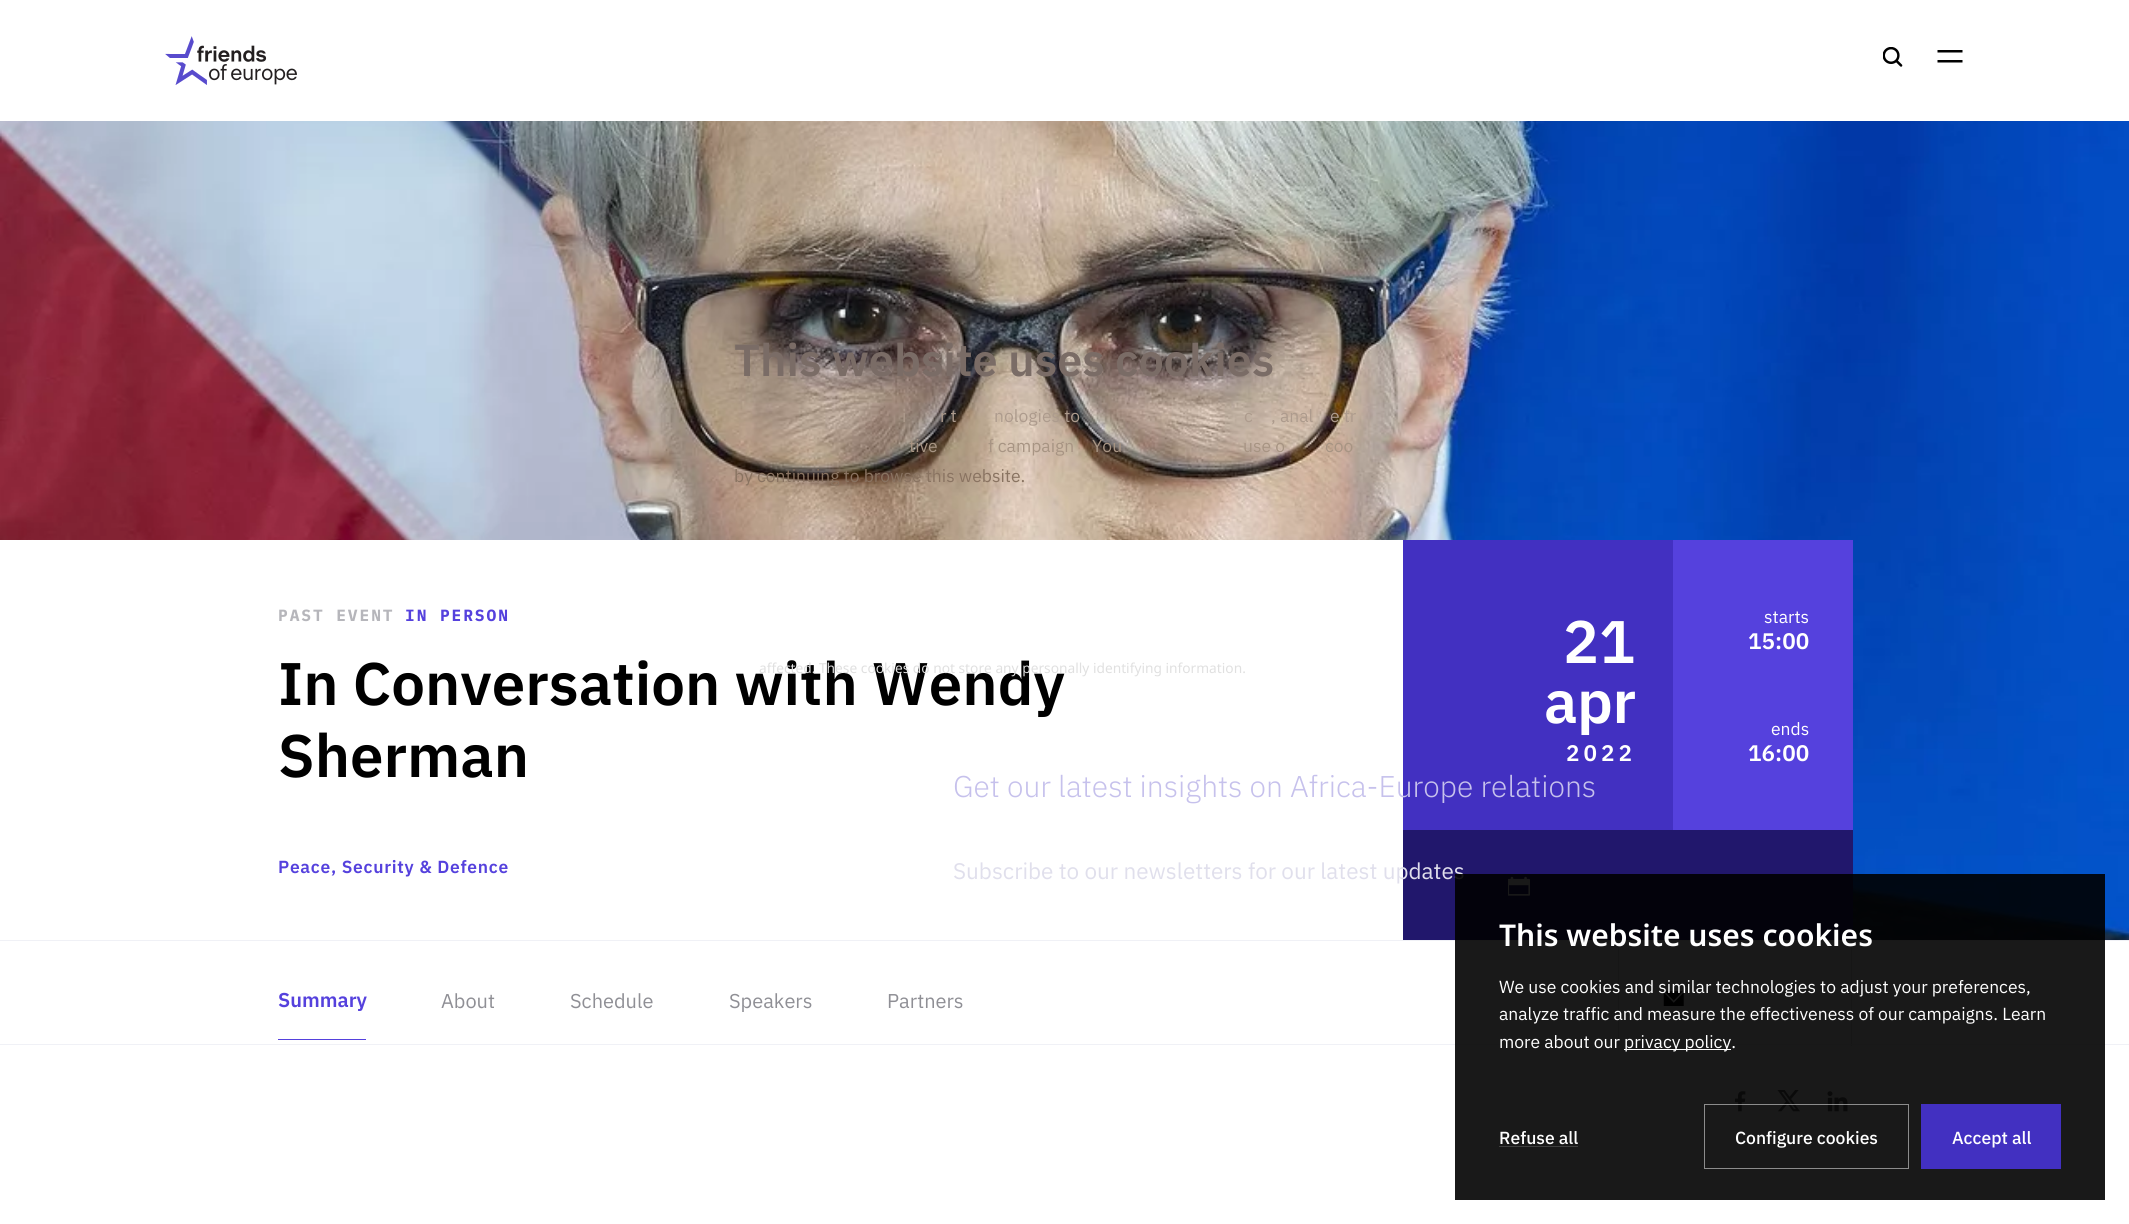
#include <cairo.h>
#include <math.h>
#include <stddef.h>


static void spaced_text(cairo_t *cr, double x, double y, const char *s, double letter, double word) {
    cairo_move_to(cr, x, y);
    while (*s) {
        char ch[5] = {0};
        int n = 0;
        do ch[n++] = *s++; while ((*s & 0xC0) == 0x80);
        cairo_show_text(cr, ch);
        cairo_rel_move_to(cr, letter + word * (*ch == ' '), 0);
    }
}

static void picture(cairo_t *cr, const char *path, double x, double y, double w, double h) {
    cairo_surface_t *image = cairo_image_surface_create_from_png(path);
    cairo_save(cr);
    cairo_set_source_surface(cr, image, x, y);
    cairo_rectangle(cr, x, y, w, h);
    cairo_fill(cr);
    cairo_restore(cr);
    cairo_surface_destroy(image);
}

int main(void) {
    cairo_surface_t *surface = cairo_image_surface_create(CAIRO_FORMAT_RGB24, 2129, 1224);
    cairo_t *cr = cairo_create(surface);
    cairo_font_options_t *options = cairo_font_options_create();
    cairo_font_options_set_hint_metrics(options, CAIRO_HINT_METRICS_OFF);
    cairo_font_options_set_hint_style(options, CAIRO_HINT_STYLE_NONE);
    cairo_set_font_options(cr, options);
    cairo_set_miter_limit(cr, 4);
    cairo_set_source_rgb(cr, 1, 1, 1);
    cairo_paint(cr);
    picture(cr, "img3.png", 0, 121, 2129, 819);
    cairo_select_font_face(cr, "IBM Plex Sans SemiBold", CAIRO_FONT_SLANT_NORMAL, CAIRO_FONT_WEIGHT_NORMAL);
    cairo_set_font_size(cr, 45);
    cairo_set_source_rgb(cr, 0.478, 0.424, 0.4);
    cairo_move_to(cr, 734, 376);
    cairo_show_text(cr, "This website uses cookies");
    cairo_select_font_face(cr, "IBM Plex Sans", CAIRO_FONT_SLANT_NORMAL, CAIRO_FONT_WEIGHT_NORMAL);
    cairo_set_font_size(cr, 17.5);
    cairo_set_source_rgb(cr, 0.678, 0.608, 0.553);
    cairo_move_to(cr, 902, 422);
    cairo_show_text(cr, "i");
    cairo_move_to(cr, 940, 422);
    cairo_show_text(cr, "r t");
    cairo_move_to(cr, 994, 422);
    cairo_show_text(cr, "nologies to");
    cairo_move_to(cr, 1244, 422);
    cairo_show_text(cr, "c");
    cairo_move_to(cr, 1271, 422);
    cairo_show_text(cr, ", anal");
    cairo_move_to(cr, 1330, 422);
    cairo_show_text(cr, "e tr");
    cairo_set_source_rgb(cr, 0.655, 0.58, 0.514);
    cairo_move_to(cr, 909, 452);
    cairo_show_text(cr, "tive");
    cairo_move_to(cr, 988, 452);
    cairo_show_text(cr, "f campaign");
    cairo_move_to(cr, 1092, 452);
    cairo_show_text(cr, "You");
    cairo_move_to(cr, 1243, 452);
    cairo_show_text(cr, "use o");
    cairo_move_to(cr, 1325, 452);
    cairo_show_text(cr, "coo");
    cairo_set_source_rgb(cr, 0.537, 0.451, 0.38);
    cairo_move_to(cr, 734, 482);
    cairo_show_text(cr, "by continuing to browse this website.");
    cairo_set_source_rgb(cr, 1, 1, 1);
    cairo_rectangle(cr, 0, 540, 1403, 400);
    cairo_fill(cr);
    cairo_select_font_face(cr, "IBM Plex Sans SemiBold", CAIRO_FONT_SLANT_NORMAL, CAIRO_FONT_WEIGHT_NORMAL);
    cairo_set_font_size(cr, 60);
    cairo_set_source_rgb(cr, 0, 0, 0);
    cairo_move_to(cr, 278, 705);
    cairo_show_text(cr, "In Conversation with Wendy");
    cairo_select_font_face(cr, "Noto Sans", CAIRO_FONT_SLANT_NORMAL, CAIRO_FONT_WEIGHT_NORMAL);
    cairo_set_font_size(cr, 13.75);
    cairo_set_source_rgb(cr, 0.878, 0.878, 0.878);
    cairo_move_to(cr, 759, 673);
    cairo_show_text(cr, "affected. These cookies do not store any personally identifying information.");
    cairo_set_source_rgb(cr, 0.129, 0.09, 0.424);
    cairo_rectangle(cr, 1403, 830, 450, 110);
    cairo_fill(cr);
    picture(cr, "img4.png", 1508, 876, 22, 20);
    cairo_set_source_rgb(cr, 0.867, 0.867, 0.875);
    cairo_rectangle(cr, 1851, 940, 1, 106);
    cairo_fill(cr);
    cairo_rectangle(cr, 1618, 940, 1, 106);
    cairo_fill(cr);
    cairo_set_source_rgb(cr, 0.941, 0.945, 0.961);
    cairo_rectangle(cr, 0, 940, 2129, 1);
    cairo_fill(cr);
    picture(cr, "img5.png", 1663, 991, 21, 15);
    cairo_rectangle(cr, 0, 1044, 2129, 1);
    cairo_fill(cr);
    picture(cr, "img6.png", 1735, 1091, 11, 21);
    picture(cr, "img7.png", 1777, 1090, 23, 22);
    picture(cr, "img8.png", 1827, 1091, 21, 21);
    cairo_select_font_face(cr, "IBM Plex Sans", CAIRO_FONT_SLANT_NORMAL, CAIRO_FONT_WEIGHT_NORMAL);
    cairo_set_font_size(cr, 22.5);
    cairo_set_source_rgb(cr, 0.878, 0.875, 0.922);
    cairo_move_to(cr, 953, 879);
    cairo_show_text(cr, "Subscribe to our newsletters for our latest updates");
    cairo_set_source_rgba(cr, 0, 0, 0, 0.9);
    cairo_rectangle(cr, 1455, 874, 650, 326);
    cairo_fill(cr);
    cairo_select_font_face(cr, "Noto Sans SemiBold", CAIRO_FONT_SLANT_NORMAL, CAIRO_FONT_WEIGHT_NORMAL);
    cairo_set_font_size(cr, 30);
    cairo_set_source_rgb(cr, 1, 1, 1);
    cairo_move_to(cr, 1499, 946);
    cairo_show_text(cr, "This website uses cookies");
    cairo_select_font_face(cr, "IBM Plex Sans", CAIRO_FONT_SLANT_NORMAL, CAIRO_FONT_WEIGHT_NORMAL);
    cairo_set_font_size(cr, 17.5);
    cairo_move_to(cr, 1499, 993);
    cairo_show_text(cr, "We use cookies and similar technologies to adjust your preferences,");
    cairo_move_to(cr, 1499, 1020);
    cairo_show_text(cr, "analyze traffic and measure the effectiveness of our campaigns. Learn");
    cairo_move_to(cr, 1499, 1048);
    cairo_show_text(cr, "more about our");
    cairo_rectangle(cr, 1624, 1049, 107, 1);
    cairo_fill(cr);
    cairo_move_to(cr, 1624, 1048);
    cairo_show_text(cr, "privacy policy.");
    cairo_select_font_face(cr, "IBM Plex Sans Medium", CAIRO_FONT_SLANT_NORMAL, CAIRO_FONT_WEIGHT_NORMAL);
    cairo_move_to(cr, 1499, 1144);
    cairo_show_text(cr, "Refuse all");
    cairo_set_source_rgb(cr, 0.251, 0.251, 0.251);
    cairo_rectangle(cr, 1499, 1146, 79, 1);
    cairo_fill(cr);
    cairo_rectangle(cr, 1704.5, 1104.5, 204, 64);
    cairo_set_source_rgba(cr, 1, 1, 1, 0.5);
    cairo_set_line_width(cr, 1);
    cairo_stroke(cr);
    cairo_set_source_rgb(cr, 1, 1, 1);
    cairo_move_to(cr, 1735, 1144);
    cairo_show_text(cr, "Configure cookies");
    cairo_set_source_rgb(cr, 0.259, 0.188, 0.757);
    cairo_rectangle(cr, 1921, 1104, 140, 65);
    cairo_fill(cr);
    cairo_set_source_rgb(cr, 1, 1, 1);
    cairo_move_to(cr, 1952, 1144);
    cairo_show_text(cr, "Accept all");
    picture(cr, "img1.png", 165, 36, 132, 49);
    picture(cr, "img2.png", 1883, 47, 20, 20);
    cairo_set_source_rgb(cr, 0, 0, 0);
    cairo_new_path(cr);
    cairo_move_to(cr, 1937.5, 60);
    cairo_line_to(cr, 1962.5, 60);
    cairo_line_to(cr, 1962.5, 62.5);
    cairo_line_to(cr, 1937.5, 62.5);
    cairo_close_path(cr);
    cairo_move_to(cr, 1937.5, 50);
    cairo_line_to(cr, 1962.5, 50);
    cairo_line_to(cr, 1962.5, 52.5);
    cairo_line_to(cr, 1937.5, 52.5);
    cairo_close_path(cr);
    cairo_fill(cr);
    cairo_select_font_face(cr, "IBM Plex Mono", CAIRO_FONT_SLANT_NORMAL, CAIRO_FONT_WEIGHT_BOLD);
    cairo_set_font_size(cr, 16.25);
    cairo_set_source_rgb(cr, 0.714, 0.714, 0.733);
    spaced_text(cr, 278, 621, "PAST EVENT", 1.9, 0);
    cairo_set_source_rgb(cr, 0.333, 0.255, 0.867);
    spaced_text(cr, 405, 621, "IN PERSON", 1.9, 0);
    cairo_select_font_face(cr, "IBM Plex Sans SemiBold", CAIRO_FONT_SLANT_NORMAL, CAIRO_FONT_WEIGHT_NORMAL);
    cairo_set_font_size(cr, 60);
    cairo_set_source_rgb(cr, 0, 0, 0);
    cairo_move_to(cr, 278, 777);
    cairo_show_text(cr, "Sherman");
    cairo_set_font_size(cr, 17.5);
    cairo_set_source_rgb(cr, 0.333, 0.255, 0.867);
    spaced_text(cr, 278, 873, "Peace, Security & Defence", 0.7, 0);
    cairo_set_source_rgb(cr, 0.259, 0.188, 0.757);
    cairo_rectangle(cr, 1403, 540, 270, 290);
    cairo_fill(cr);
    cairo_set_font_size(cr, 60);
    cairo_set_source_rgb(cr, 1, 1, 1);
    cairo_move_to(cr, 1563, 663);
    cairo_show_text(cr, "21");
    spaced_text(cr, 1544, 723, "apr", -0.5, 0);
    cairo_set_font_size(cr, 22.5);
    spaced_text(cr, 1566, 761, "2022", 4, 0);
    cairo_set_source_rgb(cr, 0.333, 0.255, 0.867);
    cairo_rectangle(cr, 1673, 540, 180, 290);
    cairo_fill(cr);
    cairo_select_font_face(cr, "IBM Plex Sans", CAIRO_FONT_SLANT_NORMAL, CAIRO_FONT_WEIGHT_NORMAL);
    cairo_set_font_size(cr, 17.5);
    cairo_set_source_rgb(cr, 1, 1, 1);
    cairo_move_to(cr, 1764, 623);
    cairo_show_text(cr, "starts");
    cairo_select_font_face(cr, "IBM Plex Sans SemiBold", CAIRO_FONT_SLANT_NORMAL, CAIRO_FONT_WEIGHT_NORMAL);
    cairo_set_font_size(cr, 22.5);
    cairo_move_to(cr, 1748, 649);
    cairo_show_text(cr, "15:00");
    cairo_select_font_face(cr, "IBM Plex Sans", CAIRO_FONT_SLANT_NORMAL, CAIRO_FONT_WEIGHT_NORMAL);
    cairo_set_font_size(cr, 17.5);
    cairo_move_to(cr, 1771, 735);
    cairo_show_text(cr, "ends");
    cairo_select_font_face(cr, "IBM Plex Sans SemiBold", CAIRO_FONT_SLANT_NORMAL, CAIRO_FONT_WEIGHT_NORMAL);
    cairo_set_font_size(cr, 22.5);
    cairo_move_to(cr, 1748, 761);
    cairo_show_text(cr, "16:00");
    cairo_set_font_size(cr, 20);
    cairo_set_source_rgb(cr, 0.333, 0.255, 0.867);
    cairo_move_to(cr, 278, 1007);
    cairo_show_text(cr, "Summary");
    cairo_rectangle(cr, 278, 1039, 88, 1);
    cairo_fill(cr);
    cairo_select_font_face(cr, "IBM Plex Sans", CAIRO_FONT_SLANT_NORMAL, CAIRO_FONT_WEIGHT_NORMAL);
    cairo_set_source_rgb(cr, 0.561, 0.561, 0.584);
    cairo_move_to(cr, 441, 1008);
    cairo_show_text(cr, "About");
    cairo_move_to(cr, 570, 1008);
    cairo_show_text(cr, "Schedule");
    cairo_move_to(cr, 729, 1008);
    cairo_show_text(cr, "Speakers");
    cairo_move_to(cr, 887, 1008);
    cairo_show_text(cr, "Partners");
    cairo_select_font_face(cr, "IBM Plex Sans Light", CAIRO_FONT_SLANT_NORMAL, CAIRO_FONT_WEIGHT_NORMAL);
    cairo_set_font_size(cr, 30);
    cairo_set_source_rgb(cr, 0.776, 0.757, 0.925);
    cairo_move_to(cr, 953, 797);
    cairo_show_text(cr, "Get our latest insights on Africa-Europe relations");
    cairo_surface_write_to_png(surface, "page.png");
    cairo_font_options_destroy(options);
    cairo_destroy(cr);
    cairo_surface_destroy(surface);
    return 0;
}
